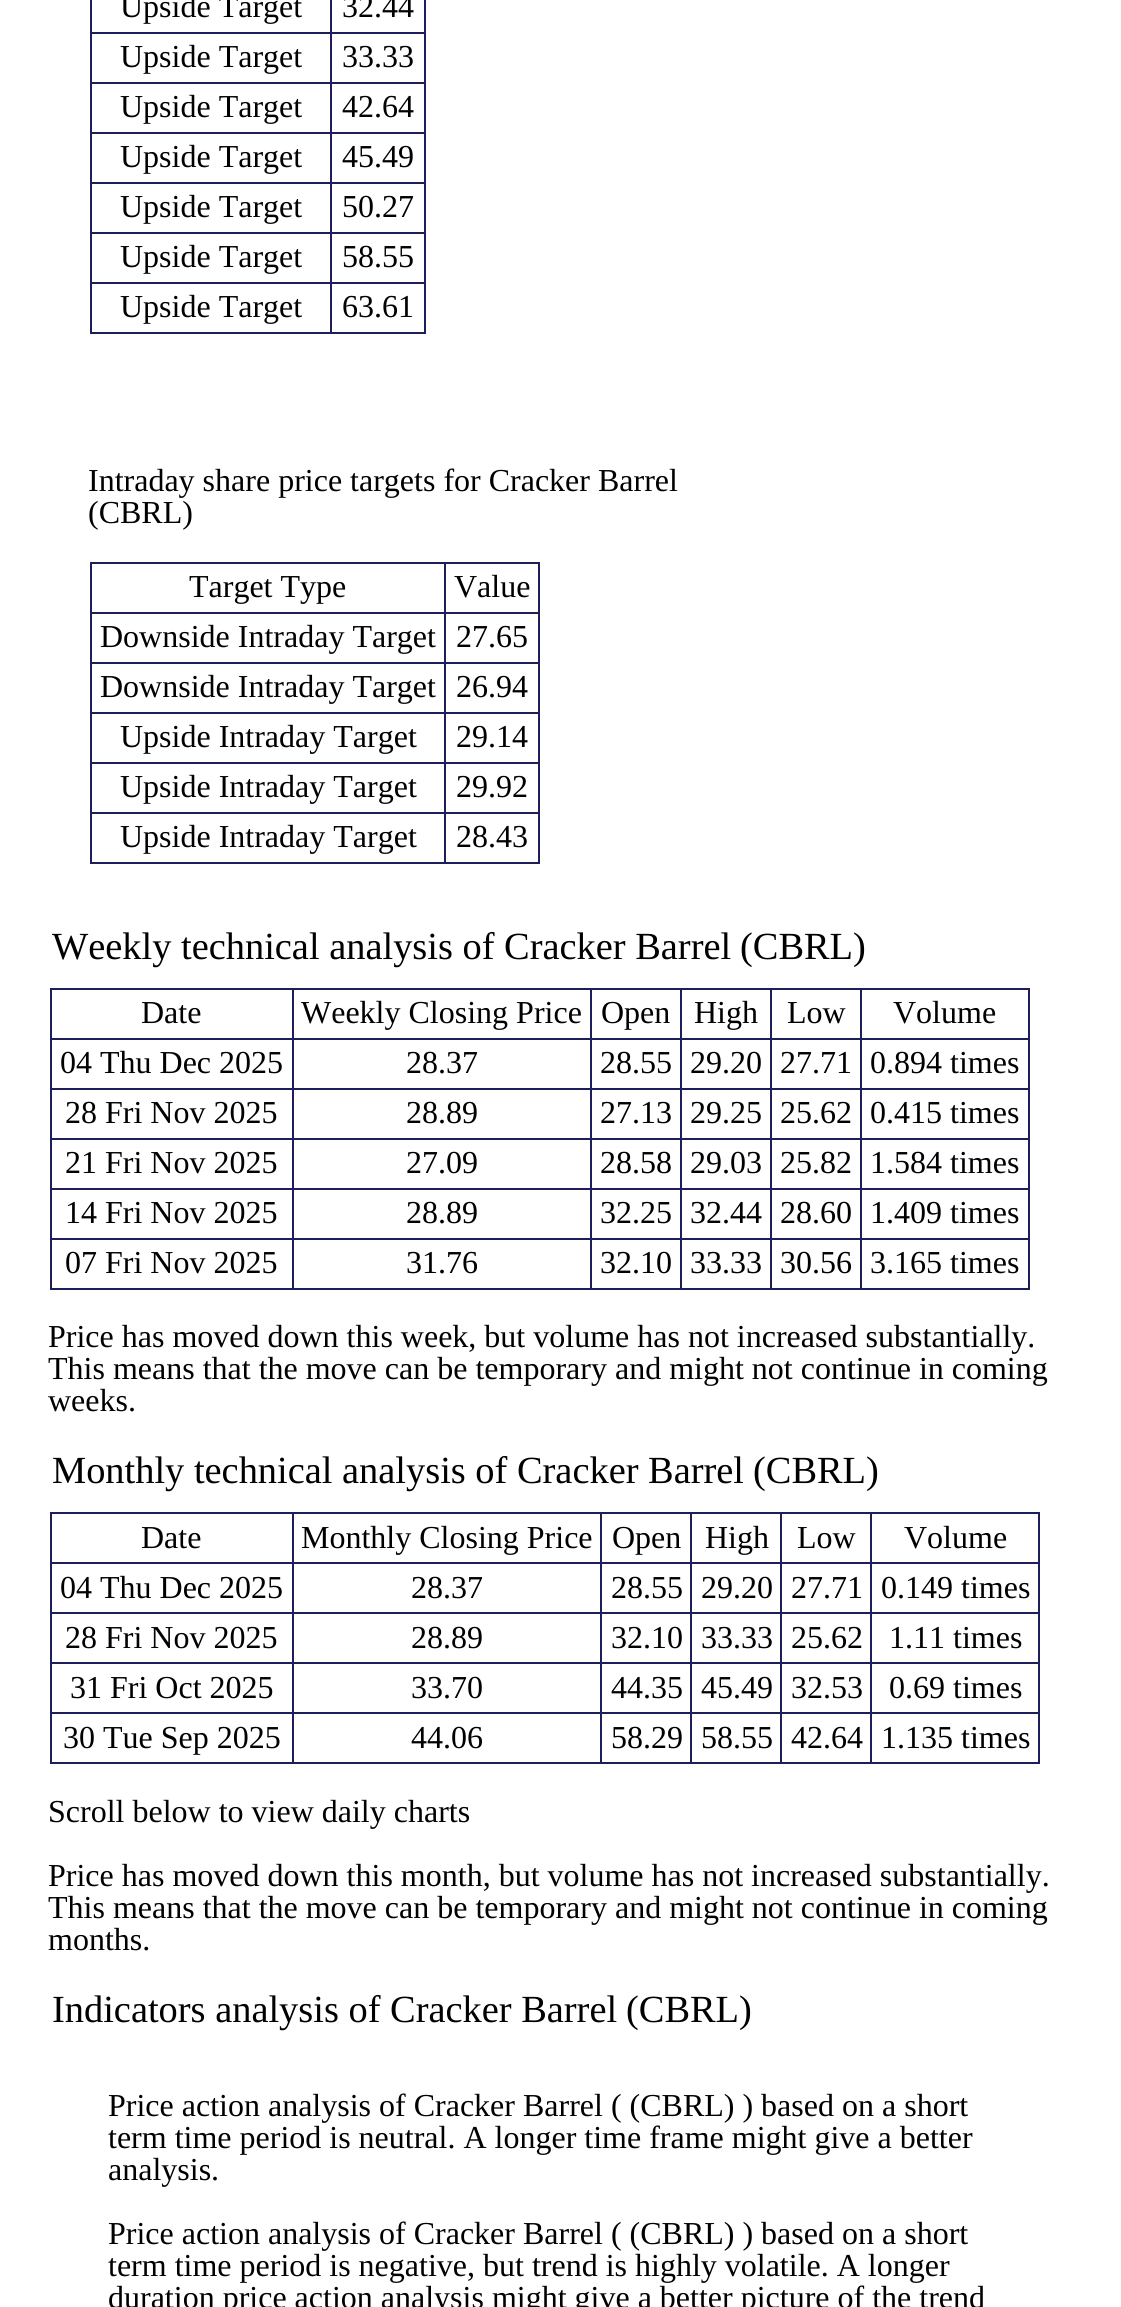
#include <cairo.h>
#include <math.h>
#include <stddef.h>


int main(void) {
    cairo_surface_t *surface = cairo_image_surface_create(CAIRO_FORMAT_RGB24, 1121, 2307);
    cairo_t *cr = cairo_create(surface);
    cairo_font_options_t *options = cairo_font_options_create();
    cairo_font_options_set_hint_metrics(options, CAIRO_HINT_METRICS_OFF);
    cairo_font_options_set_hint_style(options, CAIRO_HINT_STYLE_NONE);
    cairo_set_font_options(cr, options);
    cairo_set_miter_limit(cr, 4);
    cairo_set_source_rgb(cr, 1, 1, 1);
    cairo_paint(cr);
    cairo_set_source_rgb(cr, 0.118, 0.118, 0.353);
    cairo_rectangle(cr, 424, 0, 2, 334);
    cairo_fill(cr);
    cairo_rectangle(cr, 90, 332, 336, 2);
    cairo_fill(cr);
    cairo_rectangle(cr, 90, 0, 2, 334);
    cairo_fill(cr);
    cairo_select_font_face(cr, "Liberation Serif", CAIRO_FONT_SLANT_NORMAL, CAIRO_FONT_WEIGHT_NORMAL);
    cairo_set_font_size(cr, 32);
    cairo_set_source_rgb(cr, 0, 0, 0);
    cairo_move_to(cr, 120, 17);
    cairo_show_text(cr, "Upside Target");
    cairo_set_source_rgb(cr, 0.118, 0.118, 0.353);
    cairo_rectangle(cr, 330, 32, 96, 2);
    cairo_fill(cr);
    cairo_rectangle(cr, 330, 82, 96, 2);
    cairo_fill(cr);
    cairo_rectangle(cr, 330, 132, 96, 2);
    cairo_fill(cr);
    cairo_rectangle(cr, 330, 182, 96, 2);
    cairo_fill(cr);
    cairo_rectangle(cr, 330, 232, 96, 2);
    cairo_fill(cr);
    cairo_rectangle(cr, 330, 282, 96, 2);
    cairo_fill(cr);
    cairo_rectangle(cr, 330, 282, 2, 52);
    cairo_fill(cr);
    cairo_rectangle(cr, 90, 282, 242, 2);
    cairo_fill(cr);
    cairo_rectangle(cr, 330, 232, 2, 52);
    cairo_fill(cr);
    cairo_rectangle(cr, 90, 232, 242, 2);
    cairo_fill(cr);
    cairo_rectangle(cr, 330, 182, 2, 52);
    cairo_fill(cr);
    cairo_rectangle(cr, 90, 182, 242, 2);
    cairo_fill(cr);
    cairo_rectangle(cr, 330, 132, 2, 52);
    cairo_fill(cr);
    cairo_rectangle(cr, 90, 132, 242, 2);
    cairo_fill(cr);
    cairo_rectangle(cr, 330, 82, 2, 52);
    cairo_fill(cr);
    cairo_rectangle(cr, 90, 82, 242, 2);
    cairo_fill(cr);
    cairo_rectangle(cr, 330, 32, 2, 52);
    cairo_fill(cr);
    cairo_rectangle(cr, 90, 32, 242, 2);
    cairo_fill(cr);
    cairo_rectangle(cr, 330, 0, 2, 34);
    cairo_fill(cr);
    cairo_set_source_rgb(cr, 0, 0, 0);
    cairo_move_to(cr, 342, 17);
    cairo_show_text(cr, "32.44");
    cairo_move_to(cr, 120, 67);
    cairo_show_text(cr, "Upside Target");
    cairo_move_to(cr, 342, 67);
    cairo_show_text(cr, "33.33");
    cairo_move_to(cr, 120, 117);
    cairo_show_text(cr, "Upside Target");
    cairo_move_to(cr, 342, 117);
    cairo_show_text(cr, "42.64");
    cairo_move_to(cr, 120, 167);
    cairo_show_text(cr, "Upside Target");
    cairo_move_to(cr, 342, 167);
    cairo_show_text(cr, "45.49");
    cairo_move_to(cr, 120, 217);
    cairo_show_text(cr, "Upside Target");
    cairo_move_to(cr, 342, 217);
    cairo_show_text(cr, "50.27");
    cairo_move_to(cr, 120, 267);
    cairo_show_text(cr, "Upside Target");
    cairo_move_to(cr, 342, 267);
    cairo_show_text(cr, "58.55");
    cairo_move_to(cr, 120, 317);
    cairo_show_text(cr, "Upside Target");
    cairo_move_to(cr, 342, 317);
    cairo_show_text(cr, "63.61");
    cairo_move_to(cr, 88, 491);
    cairo_show_text(cr, "Intraday share price targets for Cracker Barrel");
    cairo_move_to(cr, 88, 523);
    cairo_show_text(cr, "(CBRL)");
    cairo_set_source_rgb(cr, 0.118, 0.118, 0.353);
    cairo_rectangle(cr, 90, 562, 450, 2);
    cairo_fill(cr);
    cairo_rectangle(cr, 538, 562, 2, 302);
    cairo_fill(cr);
    cairo_rectangle(cr, 90, 862, 450, 2);
    cairo_fill(cr);
    cairo_rectangle(cr, 90, 562, 2, 302);
    cairo_fill(cr);
    cairo_set_source_rgb(cr, 0, 0, 0);
    cairo_move_to(cr, 189, 597);
    cairo_show_text(cr, "Target Type");
    cairo_set_source_rgb(cr, 0.118, 0.118, 0.353);
    cairo_rectangle(cr, 444, 612, 96, 2);
    cairo_fill(cr);
    cairo_rectangle(cr, 444, 662, 96, 2);
    cairo_fill(cr);
    cairo_rectangle(cr, 444, 712, 96, 2);
    cairo_fill(cr);
    cairo_rectangle(cr, 444, 762, 96, 2);
    cairo_fill(cr);
    cairo_rectangle(cr, 444, 812, 96, 2);
    cairo_fill(cr);
    cairo_rectangle(cr, 444, 812, 2, 52);
    cairo_fill(cr);
    cairo_rectangle(cr, 90, 812, 356, 2);
    cairo_fill(cr);
    cairo_rectangle(cr, 444, 762, 2, 52);
    cairo_fill(cr);
    cairo_rectangle(cr, 90, 762, 356, 2);
    cairo_fill(cr);
    cairo_rectangle(cr, 444, 712, 2, 52);
    cairo_fill(cr);
    cairo_rectangle(cr, 90, 712, 356, 2);
    cairo_fill(cr);
    cairo_rectangle(cr, 444, 662, 2, 52);
    cairo_fill(cr);
    cairo_rectangle(cr, 90, 662, 356, 2);
    cairo_fill(cr);
    cairo_rectangle(cr, 444, 612, 2, 52);
    cairo_fill(cr);
    cairo_rectangle(cr, 90, 612, 356, 2);
    cairo_fill(cr);
    cairo_rectangle(cr, 444, 562, 2, 52);
    cairo_fill(cr);
    cairo_set_source_rgb(cr, 0, 0, 0);
    cairo_move_to(cr, 454, 597);
    cairo_show_text(cr, "Value");
    cairo_move_to(cr, 100, 647);
    cairo_show_text(cr, "Downside Intraday Target");
    cairo_move_to(cr, 456, 647);
    cairo_show_text(cr, "27.65");
    cairo_move_to(cr, 100, 697);
    cairo_show_text(cr, "Downside Intraday Target");
    cairo_move_to(cr, 456, 697);
    cairo_show_text(cr, "26.94");
    cairo_move_to(cr, 120, 747);
    cairo_show_text(cr, "Upside Intraday Target");
    cairo_move_to(cr, 456, 747);
    cairo_show_text(cr, "29.14");
    cairo_move_to(cr, 120, 797);
    cairo_show_text(cr, "Upside Intraday Target");
    cairo_move_to(cr, 456, 797);
    cairo_show_text(cr, "29.92");
    cairo_move_to(cr, 120, 847);
    cairo_show_text(cr, "Upside Intraday Target");
    cairo_move_to(cr, 456, 847);
    cairo_show_text(cr, "28.43");
    cairo_set_font_size(cr, 38.4);
    cairo_move_to(cr, 52, 959);
    cairo_show_text(cr, "Weekly technical analysis of Cracker Barrel");
    cairo_move_to(cr, 740, 959);
    cairo_show_text(cr, "(CBRL)");
    cairo_set_source_rgb(cr, 0.118, 0.118, 0.353);
    cairo_rectangle(cr, 50, 988, 980, 2);
    cairo_fill(cr);
    cairo_rectangle(cr, 1028, 988, 2, 302);
    cairo_fill(cr);
    cairo_rectangle(cr, 50, 1288, 980, 2);
    cairo_fill(cr);
    cairo_rectangle(cr, 50, 988, 2, 302);
    cairo_fill(cr);
    cairo_set_font_size(cr, 32);
    cairo_set_source_rgb(cr, 0, 0, 0);
    cairo_move_to(cr, 141, 1023);
    cairo_show_text(cr, "Date");
    cairo_set_source_rgb(cr, 0.118, 0.118, 0.353);
    cairo_rectangle(cr, 860, 1038, 170, 2);
    cairo_fill(cr);
    cairo_rectangle(cr, 860, 1088, 170, 2);
    cairo_fill(cr);
    cairo_rectangle(cr, 860, 1138, 170, 2);
    cairo_fill(cr);
    cairo_rectangle(cr, 860, 1188, 170, 2);
    cairo_fill(cr);
    cairo_rectangle(cr, 860, 1238, 170, 2);
    cairo_fill(cr);
    cairo_rectangle(cr, 860, 1238, 2, 52);
    cairo_fill(cr);
    cairo_rectangle(cr, 770, 1238, 92, 2);
    cairo_fill(cr);
    cairo_rectangle(cr, 860, 1188, 2, 52);
    cairo_fill(cr);
    cairo_rectangle(cr, 770, 1188, 92, 2);
    cairo_fill(cr);
    cairo_rectangle(cr, 860, 1138, 2, 52);
    cairo_fill(cr);
    cairo_rectangle(cr, 770, 1138, 92, 2);
    cairo_fill(cr);
    cairo_rectangle(cr, 860, 1088, 2, 52);
    cairo_fill(cr);
    cairo_rectangle(cr, 770, 1088, 92, 2);
    cairo_fill(cr);
    cairo_rectangle(cr, 860, 1038, 2, 52);
    cairo_fill(cr);
    cairo_rectangle(cr, 770, 1038, 92, 2);
    cairo_fill(cr);
    cairo_rectangle(cr, 770, 1238, 2, 52);
    cairo_fill(cr);
    cairo_rectangle(cr, 680, 1238, 92, 2);
    cairo_fill(cr);
    cairo_rectangle(cr, 770, 1188, 2, 52);
    cairo_fill(cr);
    cairo_rectangle(cr, 680, 1188, 92, 2);
    cairo_fill(cr);
    cairo_rectangle(cr, 770, 1138, 2, 52);
    cairo_fill(cr);
    cairo_rectangle(cr, 680, 1138, 92, 2);
    cairo_fill(cr);
    cairo_rectangle(cr, 770, 1088, 2, 52);
    cairo_fill(cr);
    cairo_rectangle(cr, 680, 1088, 92, 2);
    cairo_fill(cr);
    cairo_rectangle(cr, 770, 1038, 2, 52);
    cairo_fill(cr);
    cairo_rectangle(cr, 680, 1038, 92, 2);
    cairo_fill(cr);
    cairo_rectangle(cr, 680, 1238, 2, 52);
    cairo_fill(cr);
    cairo_rectangle(cr, 590, 1238, 92, 2);
    cairo_fill(cr);
    cairo_rectangle(cr, 680, 1188, 2, 52);
    cairo_fill(cr);
    cairo_rectangle(cr, 590, 1188, 92, 2);
    cairo_fill(cr);
    cairo_rectangle(cr, 680, 1138, 2, 52);
    cairo_fill(cr);
    cairo_rectangle(cr, 590, 1138, 92, 2);
    cairo_fill(cr);
    cairo_rectangle(cr, 680, 1088, 2, 52);
    cairo_fill(cr);
    cairo_rectangle(cr, 590, 1088, 92, 2);
    cairo_fill(cr);
    cairo_rectangle(cr, 680, 1038, 2, 52);
    cairo_fill(cr);
    cairo_rectangle(cr, 590, 1038, 92, 2);
    cairo_fill(cr);
    cairo_rectangle(cr, 590, 1238, 2, 52);
    cairo_fill(cr);
    cairo_rectangle(cr, 292, 1238, 300, 2);
    cairo_fill(cr);
    cairo_rectangle(cr, 590, 1188, 2, 52);
    cairo_fill(cr);
    cairo_rectangle(cr, 292, 1188, 300, 2);
    cairo_fill(cr);
    cairo_rectangle(cr, 590, 1138, 2, 52);
    cairo_fill(cr);
    cairo_rectangle(cr, 292, 1138, 300, 2);
    cairo_fill(cr);
    cairo_rectangle(cr, 590, 1088, 2, 52);
    cairo_fill(cr);
    cairo_rectangle(cr, 292, 1088, 300, 2);
    cairo_fill(cr);
    cairo_rectangle(cr, 590, 1038, 2, 52);
    cairo_fill(cr);
    cairo_rectangle(cr, 292, 1038, 300, 2);
    cairo_fill(cr);
    cairo_rectangle(cr, 292, 1238, 2, 52);
    cairo_fill(cr);
    cairo_rectangle(cr, 50, 1238, 244, 2);
    cairo_fill(cr);
    cairo_rectangle(cr, 292, 1188, 2, 52);
    cairo_fill(cr);
    cairo_rectangle(cr, 50, 1188, 244, 2);
    cairo_fill(cr);
    cairo_rectangle(cr, 292, 1138, 2, 52);
    cairo_fill(cr);
    cairo_rectangle(cr, 50, 1138, 244, 2);
    cairo_fill(cr);
    cairo_rectangle(cr, 292, 1088, 2, 52);
    cairo_fill(cr);
    cairo_rectangle(cr, 50, 1088, 244, 2);
    cairo_fill(cr);
    cairo_rectangle(cr, 292, 1038, 2, 52);
    cairo_fill(cr);
    cairo_rectangle(cr, 50, 1038, 244, 2);
    cairo_fill(cr);
    cairo_rectangle(cr, 292, 988, 2, 52);
    cairo_fill(cr);
    cairo_set_source_rgb(cr, 0, 0, 0);
    cairo_move_to(cr, 301, 1023);
    cairo_show_text(cr, "Weekly Closing Price");
    cairo_set_source_rgb(cr, 0.118, 0.118, 0.353);
    cairo_rectangle(cr, 590, 988, 2, 52);
    cairo_fill(cr);
    cairo_set_source_rgb(cr, 0, 0, 0);
    cairo_move_to(cr, 601, 1023);
    cairo_show_text(cr, "Open");
    cairo_set_source_rgb(cr, 0.118, 0.118, 0.353);
    cairo_rectangle(cr, 680, 988, 2, 52);
    cairo_fill(cr);
    cairo_set_source_rgb(cr, 0, 0, 0);
    cairo_move_to(cr, 694, 1023);
    cairo_show_text(cr, "High");
    cairo_set_source_rgb(cr, 0.118, 0.118, 0.353);
    cairo_rectangle(cr, 770, 988, 2, 52);
    cairo_fill(cr);
    cairo_set_source_rgb(cr, 0, 0, 0);
    cairo_move_to(cr, 787, 1023);
    cairo_show_text(cr, "Low");
    cairo_set_source_rgb(cr, 0.118, 0.118, 0.353);
    cairo_rectangle(cr, 860, 988, 2, 52);
    cairo_fill(cr);
    cairo_set_source_rgb(cr, 0, 0, 0);
    cairo_move_to(cr, 893, 1023);
    cairo_show_text(cr, "Volume");
    cairo_move_to(cr, 60, 1073);
    cairo_show_text(cr, "04 Thu Dec 2025");
    cairo_move_to(cr, 406, 1073);
    cairo_show_text(cr, "28.37");
    cairo_move_to(cr, 600, 1073);
    cairo_show_text(cr, "28.55");
    cairo_move_to(cr, 690, 1073);
    cairo_show_text(cr, "29.20");
    cairo_move_to(cr, 780, 1073);
    cairo_show_text(cr, "27.71");
    cairo_move_to(cr, 870, 1073);
    cairo_show_text(cr, "0.894 times");
    cairo_move_to(cr, 65, 1123);
    cairo_show_text(cr, "28 Fri Nov 2025");
    cairo_move_to(cr, 406, 1123);
    cairo_show_text(cr, "28.89");
    cairo_move_to(cr, 600, 1123);
    cairo_show_text(cr, "27.13");
    cairo_move_to(cr, 690, 1123);
    cairo_show_text(cr, "29.25");
    cairo_move_to(cr, 780, 1123);
    cairo_show_text(cr, "25.62");
    cairo_move_to(cr, 870, 1123);
    cairo_show_text(cr, "0.415 times");
    cairo_move_to(cr, 65, 1173);
    cairo_show_text(cr, "21 Fri Nov 2025");
    cairo_move_to(cr, 406, 1173);
    cairo_show_text(cr, "27.09");
    cairo_move_to(cr, 600, 1173);
    cairo_show_text(cr, "28.58");
    cairo_move_to(cr, 690, 1173);
    cairo_show_text(cr, "29.03");
    cairo_move_to(cr, 780, 1173);
    cairo_show_text(cr, "25.82");
    cairo_move_to(cr, 870, 1173);
    cairo_show_text(cr, "1.584 times");
    cairo_move_to(cr, 65, 1223);
    cairo_show_text(cr, "14 Fri Nov 2025");
    cairo_move_to(cr, 406, 1223);
    cairo_show_text(cr, "28.89");
    cairo_move_to(cr, 600, 1223);
    cairo_show_text(cr, "32.25");
    cairo_move_to(cr, 690, 1223);
    cairo_show_text(cr, "32.44");
    cairo_move_to(cr, 780, 1223);
    cairo_show_text(cr, "28.60");
    cairo_move_to(cr, 870, 1223);
    cairo_show_text(cr, "1.409 times");
    cairo_move_to(cr, 65, 1273);
    cairo_show_text(cr, "07 Fri Nov 2025");
    cairo_move_to(cr, 406, 1273);
    cairo_show_text(cr, "31.76");
    cairo_move_to(cr, 600, 1273);
    cairo_show_text(cr, "32.10");
    cairo_move_to(cr, 690, 1273);
    cairo_show_text(cr, "33.33");
    cairo_move_to(cr, 780, 1273);
    cairo_show_text(cr, "30.56");
    cairo_move_to(cr, 870, 1273);
    cairo_show_text(cr, "3.165 times");
    cairo_move_to(cr, 48, 1347);
    cairo_show_text(cr, "Price has moved down this week, but volume has not increased substantially.");
    cairo_move_to(cr, 48, 1379);
    cairo_show_text(cr, "This means that the move can be temporary and might not continue in coming");
    cairo_move_to(cr, 48, 1411);
    cairo_show_text(cr, "weeks.");
    cairo_set_font_size(cr, 38.4);
    cairo_move_to(cr, 52, 1483);
    cairo_show_text(cr, "Monthly technical analysis of Cracker Barrel");
    cairo_move_to(cr, 753, 1483);
    cairo_show_text(cr, "(CBRL)");
    cairo_set_source_rgb(cr, 0.118, 0.118, 0.353);
    cairo_rectangle(cr, 50, 1512, 990, 2);
    cairo_fill(cr);
    cairo_rectangle(cr, 1038, 1512, 2, 252);
    cairo_fill(cr);
    cairo_rectangle(cr, 50, 1762, 990, 2);
    cairo_fill(cr);
    cairo_rectangle(cr, 50, 1512, 2, 252);
    cairo_fill(cr);
    cairo_set_font_size(cr, 32);
    cairo_set_source_rgb(cr, 0, 0, 0);
    cairo_move_to(cr, 141, 1548);
    cairo_show_text(cr, "Date");
    cairo_set_source_rgb(cr, 0.118, 0.118, 0.353);
    cairo_rectangle(cr, 870, 1562, 170, 2);
    cairo_fill(cr);
    cairo_rectangle(cr, 870, 1612, 170, 2);
    cairo_fill(cr);
    cairo_rectangle(cr, 870, 1662, 170, 2);
    cairo_fill(cr);
    cairo_rectangle(cr, 870, 1712, 170, 2);
    cairo_fill(cr);
    cairo_rectangle(cr, 870, 1712, 2, 52);
    cairo_fill(cr);
    cairo_rectangle(cr, 780, 1712, 92, 2);
    cairo_fill(cr);
    cairo_rectangle(cr, 870, 1662, 2, 52);
    cairo_fill(cr);
    cairo_rectangle(cr, 780, 1662, 92, 2);
    cairo_fill(cr);
    cairo_rectangle(cr, 870, 1612, 2, 52);
    cairo_fill(cr);
    cairo_rectangle(cr, 780, 1612, 92, 2);
    cairo_fill(cr);
    cairo_rectangle(cr, 870, 1562, 2, 52);
    cairo_fill(cr);
    cairo_rectangle(cr, 780, 1562, 92, 2);
    cairo_fill(cr);
    cairo_rectangle(cr, 780, 1712, 2, 52);
    cairo_fill(cr);
    cairo_rectangle(cr, 690, 1712, 92, 2);
    cairo_fill(cr);
    cairo_rectangle(cr, 780, 1662, 2, 52);
    cairo_fill(cr);
    cairo_rectangle(cr, 690, 1662, 92, 2);
    cairo_fill(cr);
    cairo_rectangle(cr, 780, 1612, 2, 52);
    cairo_fill(cr);
    cairo_rectangle(cr, 690, 1612, 92, 2);
    cairo_fill(cr);
    cairo_rectangle(cr, 780, 1562, 2, 52);
    cairo_fill(cr);
    cairo_rectangle(cr, 690, 1562, 92, 2);
    cairo_fill(cr);
    cairo_rectangle(cr, 690, 1712, 2, 52);
    cairo_fill(cr);
    cairo_rectangle(cr, 600, 1712, 92, 2);
    cairo_fill(cr);
    cairo_rectangle(cr, 690, 1662, 2, 52);
    cairo_fill(cr);
    cairo_rectangle(cr, 600, 1662, 92, 2);
    cairo_fill(cr);
    cairo_rectangle(cr, 690, 1612, 2, 52);
    cairo_fill(cr);
    cairo_rectangle(cr, 600, 1612, 92, 2);
    cairo_fill(cr);
    cairo_rectangle(cr, 690, 1562, 2, 52);
    cairo_fill(cr);
    cairo_rectangle(cr, 600, 1562, 92, 2);
    cairo_fill(cr);
    cairo_rectangle(cr, 600, 1712, 2, 52);
    cairo_fill(cr);
    cairo_rectangle(cr, 292, 1712, 310, 2);
    cairo_fill(cr);
    cairo_rectangle(cr, 600, 1662, 2, 52);
    cairo_fill(cr);
    cairo_rectangle(cr, 292, 1662, 310, 2);
    cairo_fill(cr);
    cairo_rectangle(cr, 600, 1612, 2, 52);
    cairo_fill(cr);
    cairo_rectangle(cr, 292, 1612, 310, 2);
    cairo_fill(cr);
    cairo_rectangle(cr, 600, 1562, 2, 52);
    cairo_fill(cr);
    cairo_rectangle(cr, 292, 1562, 310, 2);
    cairo_fill(cr);
    cairo_rectangle(cr, 292, 1712, 2, 52);
    cairo_fill(cr);
    cairo_rectangle(cr, 50, 1712, 244, 2);
    cairo_fill(cr);
    cairo_rectangle(cr, 292, 1662, 2, 52);
    cairo_fill(cr);
    cairo_rectangle(cr, 50, 1662, 244, 2);
    cairo_fill(cr);
    cairo_rectangle(cr, 292, 1612, 2, 52);
    cairo_fill(cr);
    cairo_rectangle(cr, 50, 1612, 244, 2);
    cairo_fill(cr);
    cairo_rectangle(cr, 292, 1562, 2, 52);
    cairo_fill(cr);
    cairo_rectangle(cr, 50, 1562, 244, 2);
    cairo_fill(cr);
    cairo_rectangle(cr, 292, 1512, 2, 52);
    cairo_fill(cr);
    cairo_set_source_rgb(cr, 0, 0, 0);
    cairo_move_to(cr, 301, 1548);
    cairo_show_text(cr, "Monthly Closing Price");
    cairo_set_source_rgb(cr, 0.118, 0.118, 0.353);
    cairo_rectangle(cr, 600, 1512, 2, 52);
    cairo_fill(cr);
    cairo_set_source_rgb(cr, 0, 0, 0);
    cairo_move_to(cr, 612, 1548);
    cairo_show_text(cr, "Open");
    cairo_set_source_rgb(cr, 0.118, 0.118, 0.353);
    cairo_rectangle(cr, 690, 1512, 2, 52);
    cairo_fill(cr);
    cairo_set_source_rgb(cr, 0, 0, 0);
    cairo_move_to(cr, 705, 1548);
    cairo_show_text(cr, "High");
    cairo_set_source_rgb(cr, 0.118, 0.118, 0.353);
    cairo_rectangle(cr, 780, 1512, 2, 52);
    cairo_fill(cr);
    cairo_set_source_rgb(cr, 0, 0, 0);
    cairo_move_to(cr, 797, 1548);
    cairo_show_text(cr, "Low");
    cairo_set_source_rgb(cr, 0.118, 0.118, 0.353);
    cairo_rectangle(cr, 870, 1512, 2, 52);
    cairo_fill(cr);
    cairo_set_source_rgb(cr, 0, 0, 0);
    cairo_move_to(cr, 904, 1548);
    cairo_show_text(cr, "Volume");
    cairo_move_to(cr, 60, 1598);
    cairo_show_text(cr, "04 Thu Dec 2025");
    cairo_move_to(cr, 411, 1598);
    cairo_show_text(cr, "28.37");
    cairo_move_to(cr, 611, 1598);
    cairo_show_text(cr, "28.55");
    cairo_move_to(cr, 701, 1598);
    cairo_show_text(cr, "29.20");
    cairo_move_to(cr, 791, 1598);
    cairo_show_text(cr, "27.71");
    cairo_move_to(cr, 881, 1598);
    cairo_show_text(cr, "0.149 times");
    cairo_move_to(cr, 65, 1648);
    cairo_show_text(cr, "28 Fri Nov 2025");
    cairo_move_to(cr, 411, 1648);
    cairo_show_text(cr, "28.89");
    cairo_move_to(cr, 611, 1648);
    cairo_show_text(cr, "32.10");
    cairo_move_to(cr, 701, 1648);
    cairo_show_text(cr, "33.33");
    cairo_move_to(cr, 791, 1648);
    cairo_show_text(cr, "25.62");
    cairo_move_to(cr, 889, 1648);
    cairo_show_text(cr, "1.11 times");
    cairo_move_to(cr, 70, 1698);
    cairo_show_text(cr, "31 Fri Oct 2025");
    cairo_move_to(cr, 411, 1698);
    cairo_show_text(cr, "33.70");
    cairo_move_to(cr, 611, 1698);
    cairo_show_text(cr, "44.35");
    cairo_move_to(cr, 701, 1698);
    cairo_show_text(cr, "45.49");
    cairo_move_to(cr, 791, 1698);
    cairo_show_text(cr, "32.53");
    cairo_move_to(cr, 889, 1698);
    cairo_show_text(cr, "0.69 times");
    cairo_move_to(cr, 63, 1748);
    cairo_show_text(cr, "30 Tue Sep 2025");
    cairo_move_to(cr, 411, 1748);
    cairo_show_text(cr, "44.06");
    cairo_move_to(cr, 611, 1748);
    cairo_show_text(cr, "58.29");
    cairo_move_to(cr, 701, 1748);
    cairo_show_text(cr, "58.55");
    cairo_move_to(cr, 791, 1748);
    cairo_show_text(cr, "42.64");
    cairo_move_to(cr, 881, 1748);
    cairo_show_text(cr, "1.135 times");
    cairo_move_to(cr, 48, 1822);
    cairo_show_text(cr, "Scroll below to view daily charts");
    cairo_move_to(cr, 48, 1886);
    cairo_show_text(cr, "Price has moved down this month, but volume has not increased substantially.");
    cairo_move_to(cr, 48, 1918);
    cairo_show_text(cr, "This means that the move can be temporary and might not continue in coming");
    cairo_move_to(cr, 48, 1950);
    cairo_show_text(cr, "months.");
    cairo_set_font_size(cr, 38.4);
    cairo_move_to(cr, 52, 2022);
    cairo_show_text(cr, "Indicators analysis of Cracker Barrel");
    cairo_move_to(cr, 626, 2022);
    cairo_show_text(cr, "(CBRL)");
    cairo_set_font_size(cr, 32);
    cairo_move_to(cr, 108, 2116);
    cairo_show_text(cr, "Price action analysis of Cracker Barrel ( (CBRL) ) based on a short");
    cairo_move_to(cr, 108, 2148);
    cairo_show_text(cr, "term time period is neutral. A longer time frame might give a better");
    cairo_move_to(cr, 108, 2180);
    cairo_show_text(cr, "analysis.");
    cairo_move_to(cr, 108, 2244);
    cairo_show_text(cr, "Price action analysis of Cracker Barrel ( (CBRL) ) based on a short");
    cairo_move_to(cr, 108, 2276);
    cairo_show_text(cr, "term time period is negative, but trend is highly volatile. A longer");
    cairo_move_to(cr, 108, 2308);
    cairo_show_text(cr, "duration price action analysis might give a better picture of the trend");
    cairo_surface_write_to_png(surface, "page.png");
    cairo_font_options_destroy(options);
    cairo_destroy(cr);
    cairo_surface_destroy(surface);
    return 0;
}
